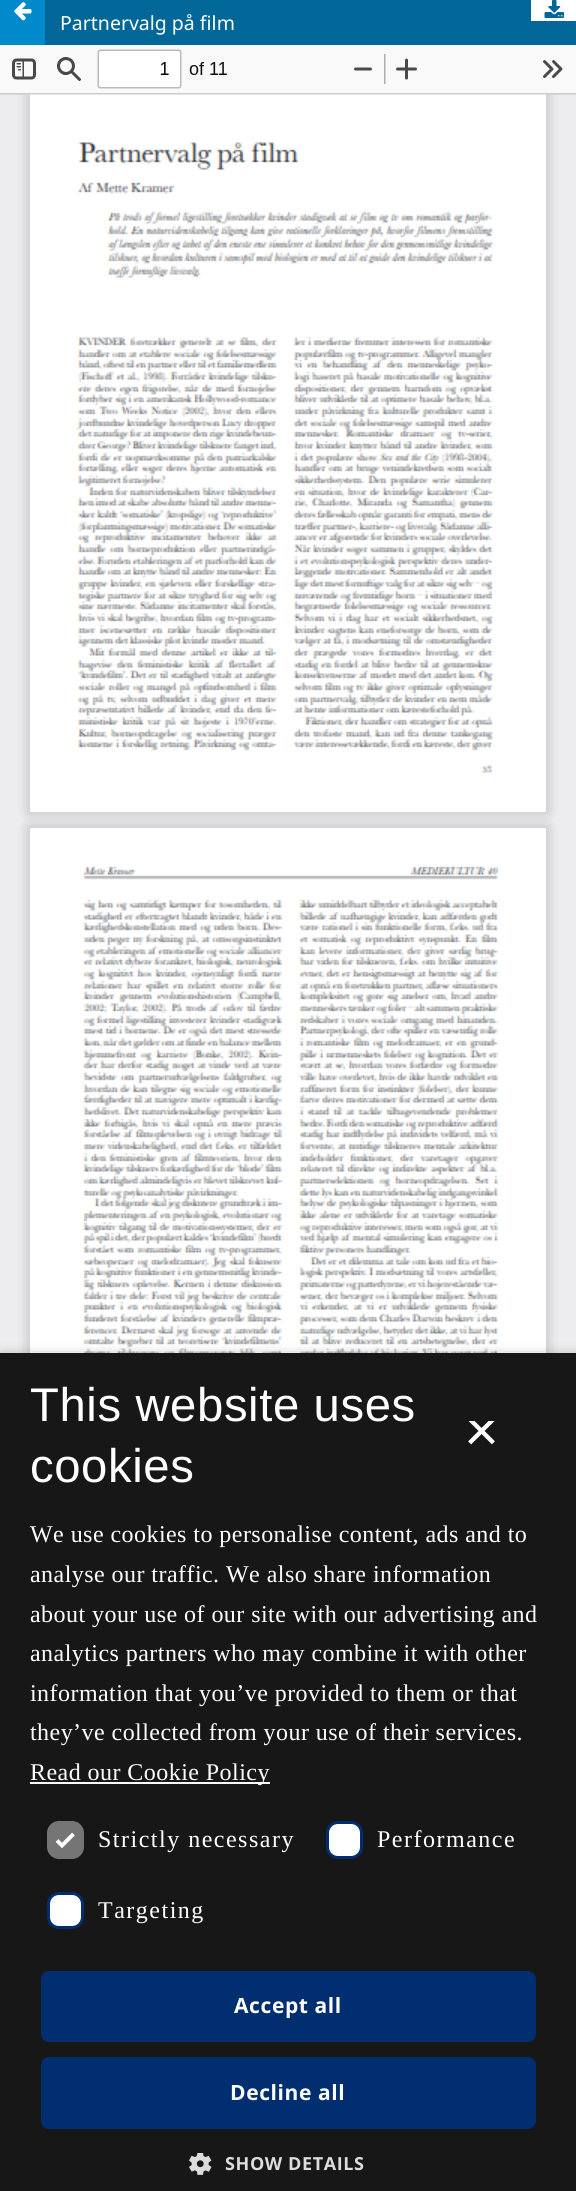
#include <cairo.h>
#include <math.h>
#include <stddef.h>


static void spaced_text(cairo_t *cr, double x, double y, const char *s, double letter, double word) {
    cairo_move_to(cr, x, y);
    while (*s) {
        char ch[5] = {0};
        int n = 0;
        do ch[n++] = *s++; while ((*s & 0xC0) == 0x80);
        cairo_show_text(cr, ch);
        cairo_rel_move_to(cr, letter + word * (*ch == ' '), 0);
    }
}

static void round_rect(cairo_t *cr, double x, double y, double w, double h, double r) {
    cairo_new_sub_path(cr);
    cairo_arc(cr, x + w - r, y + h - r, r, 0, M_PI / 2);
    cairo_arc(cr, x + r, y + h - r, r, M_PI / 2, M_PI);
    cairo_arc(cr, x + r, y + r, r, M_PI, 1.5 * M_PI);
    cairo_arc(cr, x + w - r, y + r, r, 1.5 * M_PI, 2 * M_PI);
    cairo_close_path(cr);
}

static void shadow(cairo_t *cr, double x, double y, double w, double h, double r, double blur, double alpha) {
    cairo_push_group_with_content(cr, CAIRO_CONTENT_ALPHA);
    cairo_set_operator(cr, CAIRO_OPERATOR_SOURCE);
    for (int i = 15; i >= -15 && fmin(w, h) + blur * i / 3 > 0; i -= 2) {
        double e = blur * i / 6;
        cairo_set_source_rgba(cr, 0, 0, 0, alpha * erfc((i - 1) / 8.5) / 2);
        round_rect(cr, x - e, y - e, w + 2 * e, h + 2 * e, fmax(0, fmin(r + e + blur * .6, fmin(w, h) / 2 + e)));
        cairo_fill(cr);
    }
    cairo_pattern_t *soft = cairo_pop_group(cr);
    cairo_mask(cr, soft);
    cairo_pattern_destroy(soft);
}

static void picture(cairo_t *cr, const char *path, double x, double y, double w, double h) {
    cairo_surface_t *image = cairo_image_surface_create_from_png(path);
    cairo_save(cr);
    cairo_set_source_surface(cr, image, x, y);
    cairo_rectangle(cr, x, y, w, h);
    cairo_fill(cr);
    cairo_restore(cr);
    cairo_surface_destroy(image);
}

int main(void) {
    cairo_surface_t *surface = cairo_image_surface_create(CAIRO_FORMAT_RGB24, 576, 2191);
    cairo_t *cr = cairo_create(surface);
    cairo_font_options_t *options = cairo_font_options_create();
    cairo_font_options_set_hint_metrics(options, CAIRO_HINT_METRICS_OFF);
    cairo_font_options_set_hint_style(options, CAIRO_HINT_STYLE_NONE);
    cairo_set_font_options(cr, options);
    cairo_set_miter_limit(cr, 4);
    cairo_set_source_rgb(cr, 1, 1, 1);
    cairo_paint(cr);
    cairo_set_source_rgb(cr, 0, 0.404, 0.596);
    cairo_rectangle(cr, 45, 0, 531, 45);
    cairo_fill(cr);
    cairo_set_source_rgb(cr, 0, 0.541, 0.796);
    cairo_rectangle(cr, 0, 0, 45, 45);
    cairo_fill(cr);
    picture(cr, "img1.png", 14, 2, 18, 19);
    cairo_set_source_rgb(cr, 1, 1, 1);
    cairo_rectangle(cr, 531, 0, 45, 21);
    cairo_fill(cr);
    picture(cr, "img2.png", 544, 0, 20, 18);
    cairo_select_font_face(cr, "Noto Sans", CAIRO_FONT_SLANT_NORMAL, CAIRO_FONT_WEIGHT_NORMAL);
    cairo_set_font_size(cr, 19.5);
    cairo_move_to(cr, 60, 30);
    cairo_show_text(cr, "Partnervalg på film");
    picture(cr, "img3.png", 0, 45, 576, 1308);
    cairo_set_source_rgb(cr, 0, 0, 0);
    shadow(cr, 2, 1356, 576, 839, 0, 6, 0.35);
    cairo_set_source_rgb(cr, 0.09, 0.09, 0.09);
    cairo_rectangle(cr, 0, 1353, 576, 838);
    cairo_fill(cr);
    cairo_select_font_face(cr, "Liberation Sans", CAIRO_FONT_SLANT_NORMAL, CAIRO_FONT_WEIGHT_NORMAL);
    cairo_set_font_size(cr, 47.25);
    cairo_set_source_rgb(cr, 1, 1, 1);
    spaced_text(cr, 30, 1421, "This website uses", 0.6, 0);
    spaced_text(cr, 30, 1482, "cookies", 0.6, 0);
    cairo_save(cr);
    cairo_rectangle(cr, 464, 1421, 45, 45);
    cairo_clip(cr);
    cairo_set_font_size(cr, 60);
    cairo_move_to(cr, 464, 1451);
    cairo_show_text(cr, "×");
    cairo_restore(cr);
    cairo_select_font_face(cr, "Liberation Serif", CAIRO_FONT_SLANT_NORMAL, CAIRO_FONT_WEIGHT_NORMAL);
    cairo_set_font_size(cr, 24);
    spaced_text(cr, 30, 1542, "We use cookies to personalise content, ads and to", 0.45, 0);
    spaced_text(cr, 30, 1582, "analyse our traffic. We also share information", 0.45, 0);
    spaced_text(cr, 30, 1622, "about your use of our site with our advertising and", 0.45, 0);
    spaced_text(cr, 30, 1661, "analytics partners who may combine it with other", 0.45, 0);
    spaced_text(cr, 30, 1701, "information that you’ve provided to them or that", 0.45, 0);
    spaced_text(cr, 30, 1740, "they’ve collected from your use of their services.", 0.45, 0);
    cairo_rectangle(cr, 30, 1782, 240, 2);
    cairo_fill(cr);
    spaced_text(cr, 30, 1780, "Read our Cookie Policy", 0.45, 0);
    cairo_set_source_rgb(cr, 0.459, 0.459, 0.459);
    round_rect(cr, 47, 1821, 37, 38, 12);
    cairo_fill(cr);
    cairo_new_path(cr);
    cairo_move_to(cr, 57, 1840.5);
    cairo_line_to(cr, 62, 1845.5);
    cairo_line_to(cr, 73.5, 1834);
    cairo_set_source_rgb(cr, 1, 1, 1);
    cairo_set_line_width(cr, 3.9);
    cairo_stroke(cr);
    spaced_text(cr, 98, 1847, "Strictly necessary", 1.5, 0);
    round_rect(cr, 327.5, 1822.5, 34, 35, 10.5);
    cairo_fill_preserve(cr);
    cairo_set_source_rgb(cr, 0, 0.18, 0.439);
    cairo_set_line_width(cr, 3);
    cairo_stroke(cr);
    cairo_set_source_rgb(cr, 1, 1, 1);
    spaced_text(cr, 377, 1847, "Performance", 1.5, 0);
    round_rect(cr, 48.5, 1893.5, 34, 34, 10.5);
    cairo_fill_preserve(cr);
    cairo_set_source_rgb(cr, 0, 0.18, 0.439);
    cairo_stroke(cr);
    cairo_set_source_rgb(cr, 1, 1, 1);
    spaced_text(cr, 98, 1918, "Targeting", 1.5, 0);
    cairo_set_source_rgb(cr, 0, 0.18, 0.439);
    round_rect(cr, 42, 1972, 493, 69, 7);
    cairo_fill_preserve(cr);
    cairo_set_line_width(cr, 2);
    cairo_stroke(cr);
    cairo_select_font_face(cr, "Open Sans", CAIRO_FONT_SLANT_NORMAL, CAIRO_FONT_WEIGHT_BOLD);
    cairo_set_font_size(cr, 21);
    cairo_set_source_rgb(cr, 1, 1, 1);
    spaced_text(cr, 234, 2013, "Accept all", 0.6, 0);
    cairo_set_source_rgb(cr, 0, 0.18, 0.439);
    round_rect(cr, 42, 2058, 493, 70, 7);
    cairo_fill_preserve(cr);
    cairo_stroke(cr);
    cairo_set_source_rgb(cr, 1, 1, 1);
    spaced_text(cr, 230, 2100, "Decline all", 0.6, 0);
    picture(cr, "img4.png", 189, 2153, 23, 22);
    cairo_set_font_size(cr, 18);
    cairo_set_source_rgb(cr, 0.863, 0.863, 0.863);
    spaced_text(cr, 225, 2170, "SHOW DETAILS", 0.6, 0);
    cairo_surface_write_to_png(surface, "page.png");
    cairo_font_options_destroy(options);
    cairo_destroy(cr);
    cairo_surface_destroy(surface);
    return 0;
}
